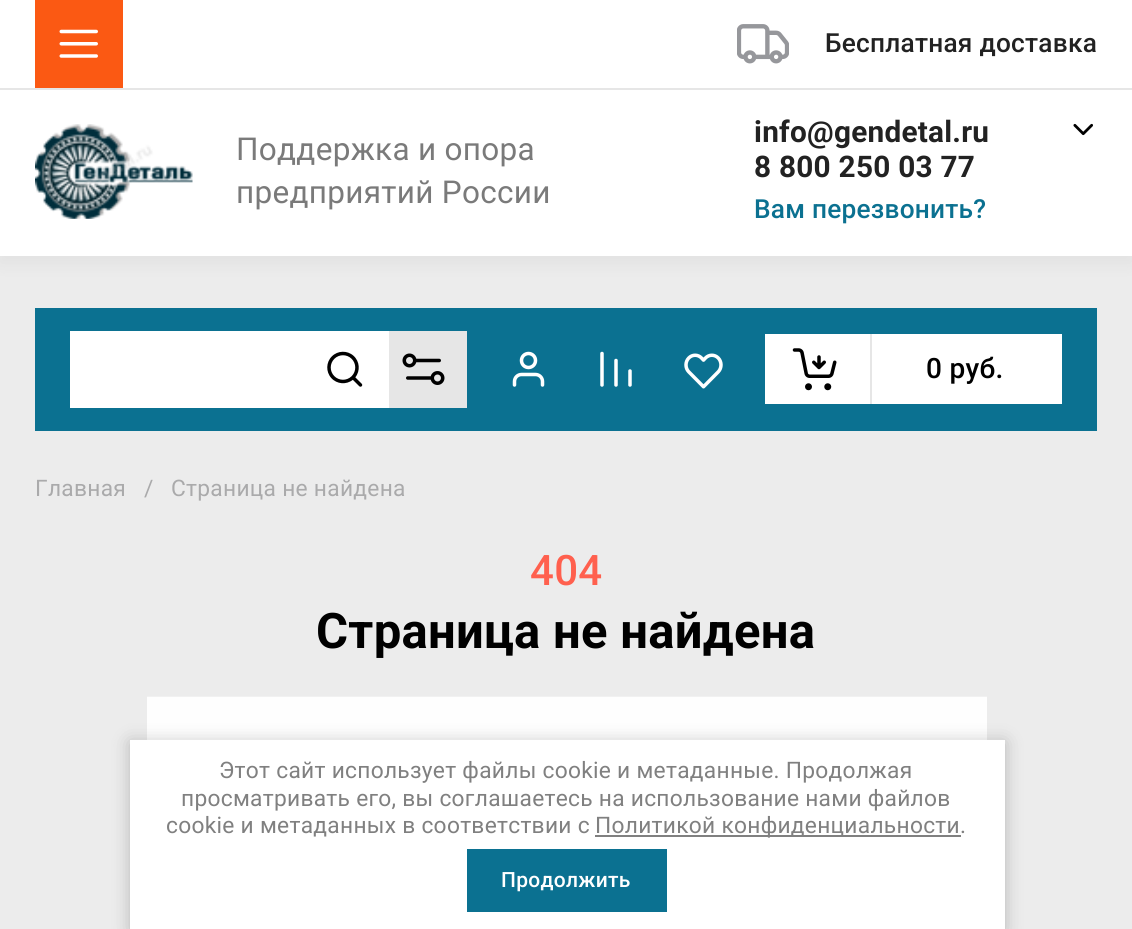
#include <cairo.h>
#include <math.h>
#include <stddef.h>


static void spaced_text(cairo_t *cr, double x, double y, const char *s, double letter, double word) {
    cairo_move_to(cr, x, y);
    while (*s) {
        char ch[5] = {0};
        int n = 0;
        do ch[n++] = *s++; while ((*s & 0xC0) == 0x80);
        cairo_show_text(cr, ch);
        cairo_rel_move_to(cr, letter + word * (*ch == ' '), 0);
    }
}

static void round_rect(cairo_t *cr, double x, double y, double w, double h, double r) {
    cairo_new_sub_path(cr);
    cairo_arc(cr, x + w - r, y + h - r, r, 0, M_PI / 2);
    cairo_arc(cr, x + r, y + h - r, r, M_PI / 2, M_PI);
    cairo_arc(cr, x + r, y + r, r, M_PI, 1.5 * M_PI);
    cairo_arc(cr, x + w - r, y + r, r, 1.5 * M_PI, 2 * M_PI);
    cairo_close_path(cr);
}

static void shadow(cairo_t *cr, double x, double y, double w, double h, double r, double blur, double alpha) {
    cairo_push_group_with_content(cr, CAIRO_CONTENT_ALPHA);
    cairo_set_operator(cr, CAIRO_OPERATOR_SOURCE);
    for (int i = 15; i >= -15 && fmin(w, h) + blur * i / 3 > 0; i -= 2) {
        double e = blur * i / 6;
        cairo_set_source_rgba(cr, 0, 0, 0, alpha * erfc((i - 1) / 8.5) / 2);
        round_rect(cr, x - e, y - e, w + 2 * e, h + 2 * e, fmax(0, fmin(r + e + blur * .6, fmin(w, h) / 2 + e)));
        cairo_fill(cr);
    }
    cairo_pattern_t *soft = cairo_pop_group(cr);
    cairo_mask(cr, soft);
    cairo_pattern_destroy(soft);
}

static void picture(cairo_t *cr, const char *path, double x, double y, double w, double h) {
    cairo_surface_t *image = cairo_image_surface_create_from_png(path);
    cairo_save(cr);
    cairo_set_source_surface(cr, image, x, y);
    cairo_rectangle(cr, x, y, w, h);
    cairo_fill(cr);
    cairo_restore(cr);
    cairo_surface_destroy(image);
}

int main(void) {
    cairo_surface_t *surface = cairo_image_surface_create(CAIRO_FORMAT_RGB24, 1132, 929);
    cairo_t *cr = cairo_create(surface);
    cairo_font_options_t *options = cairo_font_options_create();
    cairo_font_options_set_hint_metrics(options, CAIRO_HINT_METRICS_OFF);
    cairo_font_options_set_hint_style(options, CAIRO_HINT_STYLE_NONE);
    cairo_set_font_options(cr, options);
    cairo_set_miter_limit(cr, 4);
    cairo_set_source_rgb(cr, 0.925, 0.925, 0.925);
    cairo_paint(cr);
    cairo_set_source_rgb(cr, 0, 0, 0);
    shadow(cr, 0, 7, 1132, 256, 0, 9, 0.05);
    cairo_set_source_rgb(cr, 1, 1, 1);
    cairo_rectangle(cr, 0, 0, 1132, 256);
    cairo_fill(cr);
    cairo_set_source_rgb(cr, 0.984, 0.349, 0.078);
    cairo_rectangle(cr, 35, 0, 88, 88);
    cairo_fill(cr);
    picture(cr, "img1.png", 59, 29, 39, 29);
    picture(cr, "img2.png", 737, 24, 52, 40);
    cairo_select_font_face(cr, "Roboto Medium", CAIRO_FONT_SLANT_NORMAL, CAIRO_FONT_WEIGHT_NORMAL);
    cairo_set_font_size(cr, 26.25);
    cairo_set_source_rgb(cr, 0.133, 0.133, 0.133);
    spaced_text(cr, 825, 52, "Бесплатная доставка", 0.25, 0);
    cairo_set_source_rgb(cr, 0.902, 0.902, 0.902);
    cairo_rectangle(cr, 0, 88, 1132, 2);
    cairo_fill(cr);
    picture(cr, "img3.png", 35, 124, 158, 95);
    cairo_select_font_face(cr, "Roboto", CAIRO_FONT_SLANT_NORMAL, CAIRO_FONT_WEIGHT_NORMAL);
    cairo_set_font_size(cr, 31.5);
    cairo_set_source_rgb(cr, 0.478, 0.478, 0.478);
    spaced_text(cr, 236, 160, "Поддержка и опора", 0.3, 0);
    spaced_text(cr, 236, 203, "предприятий России", 0.3, 0);
    cairo_select_font_face(cr, "Roboto", CAIRO_FONT_SLANT_NORMAL, CAIRO_FONT_WEIGHT_BOLD);
    cairo_set_font_size(cr, 29.75);
    cairo_set_source_rgb(cr, 0.133, 0.133, 0.133);
    spaced_text(cr, 754, 142, "info@gendetal.ru", 0.25, 0);
    spaced_text(cr, 754, 177, "8 800 250 03 77", 0.25, 0);
    cairo_select_font_face(cr, "Roboto Medium", CAIRO_FONT_SLANT_NORMAL, CAIRO_FONT_WEIGHT_NORMAL);
    cairo_set_font_size(cr, 26.25);
    cairo_set_source_rgb(cr, 0.043, 0.443, 0.569);
    spaced_text(cr, 754, 218, "Вам перезвонить?", 0.25, 0);
    picture(cr, "img4.png", 1073, 123, 20, 13);
    cairo_rectangle(cr, 35, 308, 1062, 123);
    cairo_fill(cr);
    cairo_set_source_rgb(cr, 1, 1, 1);
    cairo_rectangle(cr, 70, 331, 319, 77);
    cairo_fill(cr);
    picture(cr, "img5.png", 327, 351, 36, 36);
    cairo_set_source_rgb(cr, 0.902, 0.902, 0.902);
    cairo_rectangle(cr, 389, 331, 78, 77);
    cairo_fill(cr);
    picture(cr, "img6.png", 402, 353, 43, 32);
    picture(cr, "img7.png", 512, 351, 33, 36);
    picture(cr, "img8.png", 600, 351, 32, 36);
    picture(cr, "img9.png", 684, 353, 39, 36);
    cairo_set_source_rgb(cr, 1, 1, 1);
    cairo_rectangle(cr, 765, 334, 297, 70);
    cairo_fill(cr);
    picture(cr, "img10.png", 792, 348, 45, 43);
    cairo_set_source_rgb(cr, 0.902, 0.902, 0.902);
    cairo_rectangle(cr, 870, 334, 2, 70);
    cairo_fill(cr);
    cairo_set_font_size(cr, 28);
    cairo_set_source_rgb(cr, 0, 0, 0);
    spaced_text(cr, 926, 378, "0 руб.", 0.28, 0);
    cairo_select_font_face(cr, "Roboto", CAIRO_FONT_SLANT_NORMAL, CAIRO_FONT_WEIGHT_NORMAL);
    cairo_set_font_size(cr, 22.75);
    cairo_set_source_rgb(cr, 0.667, 0.667, 0.671);
    spaced_text(cr, 35, 496, "Главная", 0.28, 0);
    spaced_text(cr, 144, 496, "/", 0.28, 0);
    spaced_text(cr, 171, 496, "Страница не найдена", 0.28, 0);
    cairo_select_font_face(cr, "Roboto Medium", CAIRO_FONT_SLANT_NORMAL, CAIRO_FONT_WEIGHT_NORMAL);
    cairo_set_font_size(cr, 42);
    cairo_set_source_rgb(cr, 1, 0.376, 0.306);
    spaced_text(cr, 530, 585, "404", 0.28, 0);
    cairo_select_font_face(cr, "Roboto", CAIRO_FONT_SLANT_NORMAL, CAIRO_FONT_WEIGHT_BOLD);
    cairo_set_font_size(cr, 49);
    cairo_set_source_rgb(cr, 0, 0, 0);
    spaced_text(cr, 316, 648, "Страница не найдена", 0.28, 0);
    picture(cr, "img11.png", 147, 696, 840, 44);
    cairo_set_source_rgb(cr, 0, 0, 0);
    shadow(cr, 130, 742, 875, 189, 0, 9, 0.23);
    cairo_set_source_rgb(cr, 1, 1, 1);
    cairo_rectangle(cr, 130, 740, 875, 189);
    cairo_fill(cr);
    cairo_select_font_face(cr, "Roboto", CAIRO_FONT_SLANT_NORMAL, CAIRO_FONT_WEIGHT_NORMAL);
    cairo_set_font_size(cr, 22.75);
    cairo_set_source_rgb(cr, 0.502, 0.502, 0.502);
    spaced_text(cr, 219, 778, "Этот сайт использует файлы cookie и метаданные. Продолжая", 0.28, 0);
    spaced_text(cr, 181, 806, "просматривать его, вы соглашаетесь на использование нами файлов", 0.28, 0);
    spaced_text(cr, 166, 833, "cookie и метаданных в соответствии с", 0.28, 0);
    cairo_rectangle(cr, 595, 835, 366, 2);
    cairo_fill(cr);
    spaced_text(cr, 595, 833, "Политикой конфиденциальности.", 0.28, 0);
    cairo_set_source_rgb(cr, 0.043, 0.443, 0.569);
    cairo_rectangle(cr, 467, 849, 200, 63);
    cairo_fill(cr);
    cairo_select_font_face(cr, "Roboto Medium", CAIRO_FONT_SLANT_NORMAL, CAIRO_FONT_WEIGHT_NORMAL);
    cairo_set_font_size(cr, 21);
    cairo_set_source_rgb(cr, 1, 1, 1);
    spaced_text(cr, 501, 887, "Продолжить", 0.28, 0);
    cairo_surface_write_to_png(surface, "page.png");
    cairo_font_options_destroy(options);
    cairo_destroy(cr);
    cairo_surface_destroy(surface);
    return 0;
}
